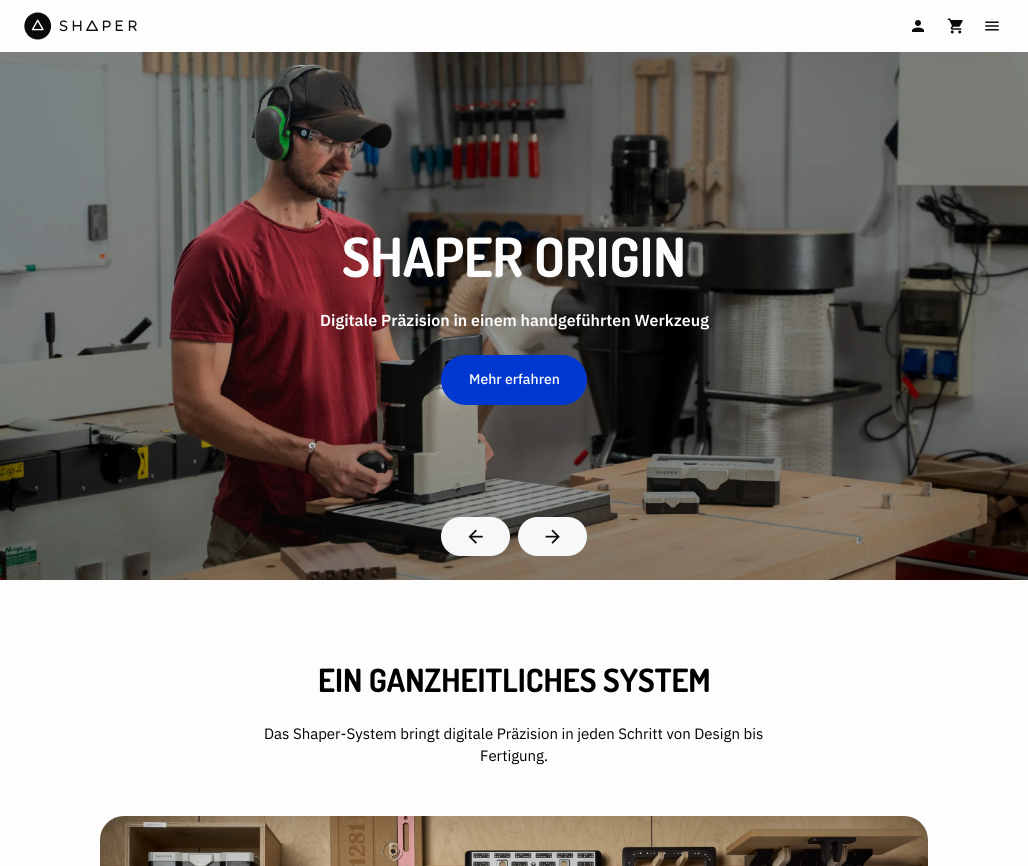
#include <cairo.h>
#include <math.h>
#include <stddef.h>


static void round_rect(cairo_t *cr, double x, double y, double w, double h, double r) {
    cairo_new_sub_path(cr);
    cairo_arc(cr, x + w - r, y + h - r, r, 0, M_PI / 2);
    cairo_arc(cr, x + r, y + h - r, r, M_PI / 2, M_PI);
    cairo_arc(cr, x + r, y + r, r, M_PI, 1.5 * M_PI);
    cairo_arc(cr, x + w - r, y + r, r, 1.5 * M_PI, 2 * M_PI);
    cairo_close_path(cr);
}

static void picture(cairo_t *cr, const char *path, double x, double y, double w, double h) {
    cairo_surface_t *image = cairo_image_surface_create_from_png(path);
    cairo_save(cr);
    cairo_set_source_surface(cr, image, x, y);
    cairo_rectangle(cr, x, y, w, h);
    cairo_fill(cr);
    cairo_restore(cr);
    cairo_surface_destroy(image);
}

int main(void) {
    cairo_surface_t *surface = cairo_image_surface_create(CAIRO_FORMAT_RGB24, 1028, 866);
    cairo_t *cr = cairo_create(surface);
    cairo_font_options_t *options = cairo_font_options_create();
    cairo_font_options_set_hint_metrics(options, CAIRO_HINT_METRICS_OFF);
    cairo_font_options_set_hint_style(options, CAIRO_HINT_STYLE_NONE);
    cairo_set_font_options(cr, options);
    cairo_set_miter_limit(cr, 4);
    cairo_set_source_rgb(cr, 0.992, 0.992, 0.996);
    cairo_paint(cr);
    picture(cr, "img1.png", 24, 12, 113, 28);
    picture(cr, "img2.png", 912, 20, 12, 12);
    picture(cr, "img3.png", 947, 18, 16, 16);
    picture(cr, "img4.png", 985, 21, 14, 10);
    picture(cr, "img5.png", 0, 52, 1028, 528);
    cairo_select_font_face(cr, "Dosis", CAIRO_FONT_SLANT_NORMAL, CAIRO_FONT_WEIGHT_BOLD);
    cairo_set_font_size(cr, 54);
    cairo_set_source_rgb(cr, 0.992, 0.992, 0.996);
    cairo_move_to(cr, 342, 277);
    cairo_show_text(cr, "SHAPER ORIGIN");
    cairo_select_font_face(cr, "IBM Plex Sans SemiBold", CAIRO_FONT_SLANT_NORMAL, CAIRO_FONT_WEIGHT_NORMAL);
    cairo_set_font_size(cr, 16);
    cairo_move_to(cr, 320, 326);
    cairo_show_text(cr, "Digitale Präzision in einem handgeführten Werkzeug");
    cairo_set_source_rgb(cr, 0, 0.22, 0.82);
    round_rect(cr, 441, 355, 146, 50, 25);
    cairo_fill(cr);
    cairo_select_font_face(cr, "IBM Plex Sans Medium", CAIRO_FONT_SLANT_NORMAL, CAIRO_FONT_WEIGHT_NORMAL);
    cairo_set_font_size(cr, 14);
    cairo_set_source_rgb(cr, 0.992, 0.992, 0.996);
    cairo_move_to(cr, 469, 384);
    cairo_show_text(cr, "Mehr erfahren");
    cairo_set_source_rgb(cr, 0.965, 0.969, 0.976);
    round_rect(cr, 441, 517, 69, 39, 19.5);
    cairo_fill(cr);
    picture(cr, "img6.png", 468, 529, 15, 15);
    round_rect(cr, 518, 517, 69, 39, 19.5);
    cairo_fill(cr);
    picture(cr, "img7.png", 545, 529, 15, 15);
    cairo_select_font_face(cr, "Dosis", CAIRO_FONT_SLANT_NORMAL, CAIRO_FONT_WEIGHT_BOLD);
    cairo_set_font_size(cr, 32);
    cairo_set_source_rgb(cr, 0, 0, 0);
    cairo_move_to(cr, 318, 692);
    cairo_show_text(cr, "EIN GANZHEITLICHES SYSTEM");
    cairo_select_font_face(cr, "IBM Plex Sans", CAIRO_FONT_SLANT_NORMAL, CAIRO_FONT_WEIGHT_NORMAL);
    cairo_set_font_size(cr, 15);
    cairo_move_to(cr, 264, 739);
    cairo_show_text(cr, "Das Shaper-System bringt digitale Präzision in jeden Schritt von Design bis");
    cairo_move_to(cr, 480, 761);
    cairo_show_text(cr, "Fertigung.");
    picture(cr, "img8.png", 100, 816, 828, 50);
    cairo_surface_write_to_png(surface, "page.png");
    cairo_font_options_destroy(options);
    cairo_destroy(cr);
    cairo_surface_destroy(surface);
    return 0;
}
